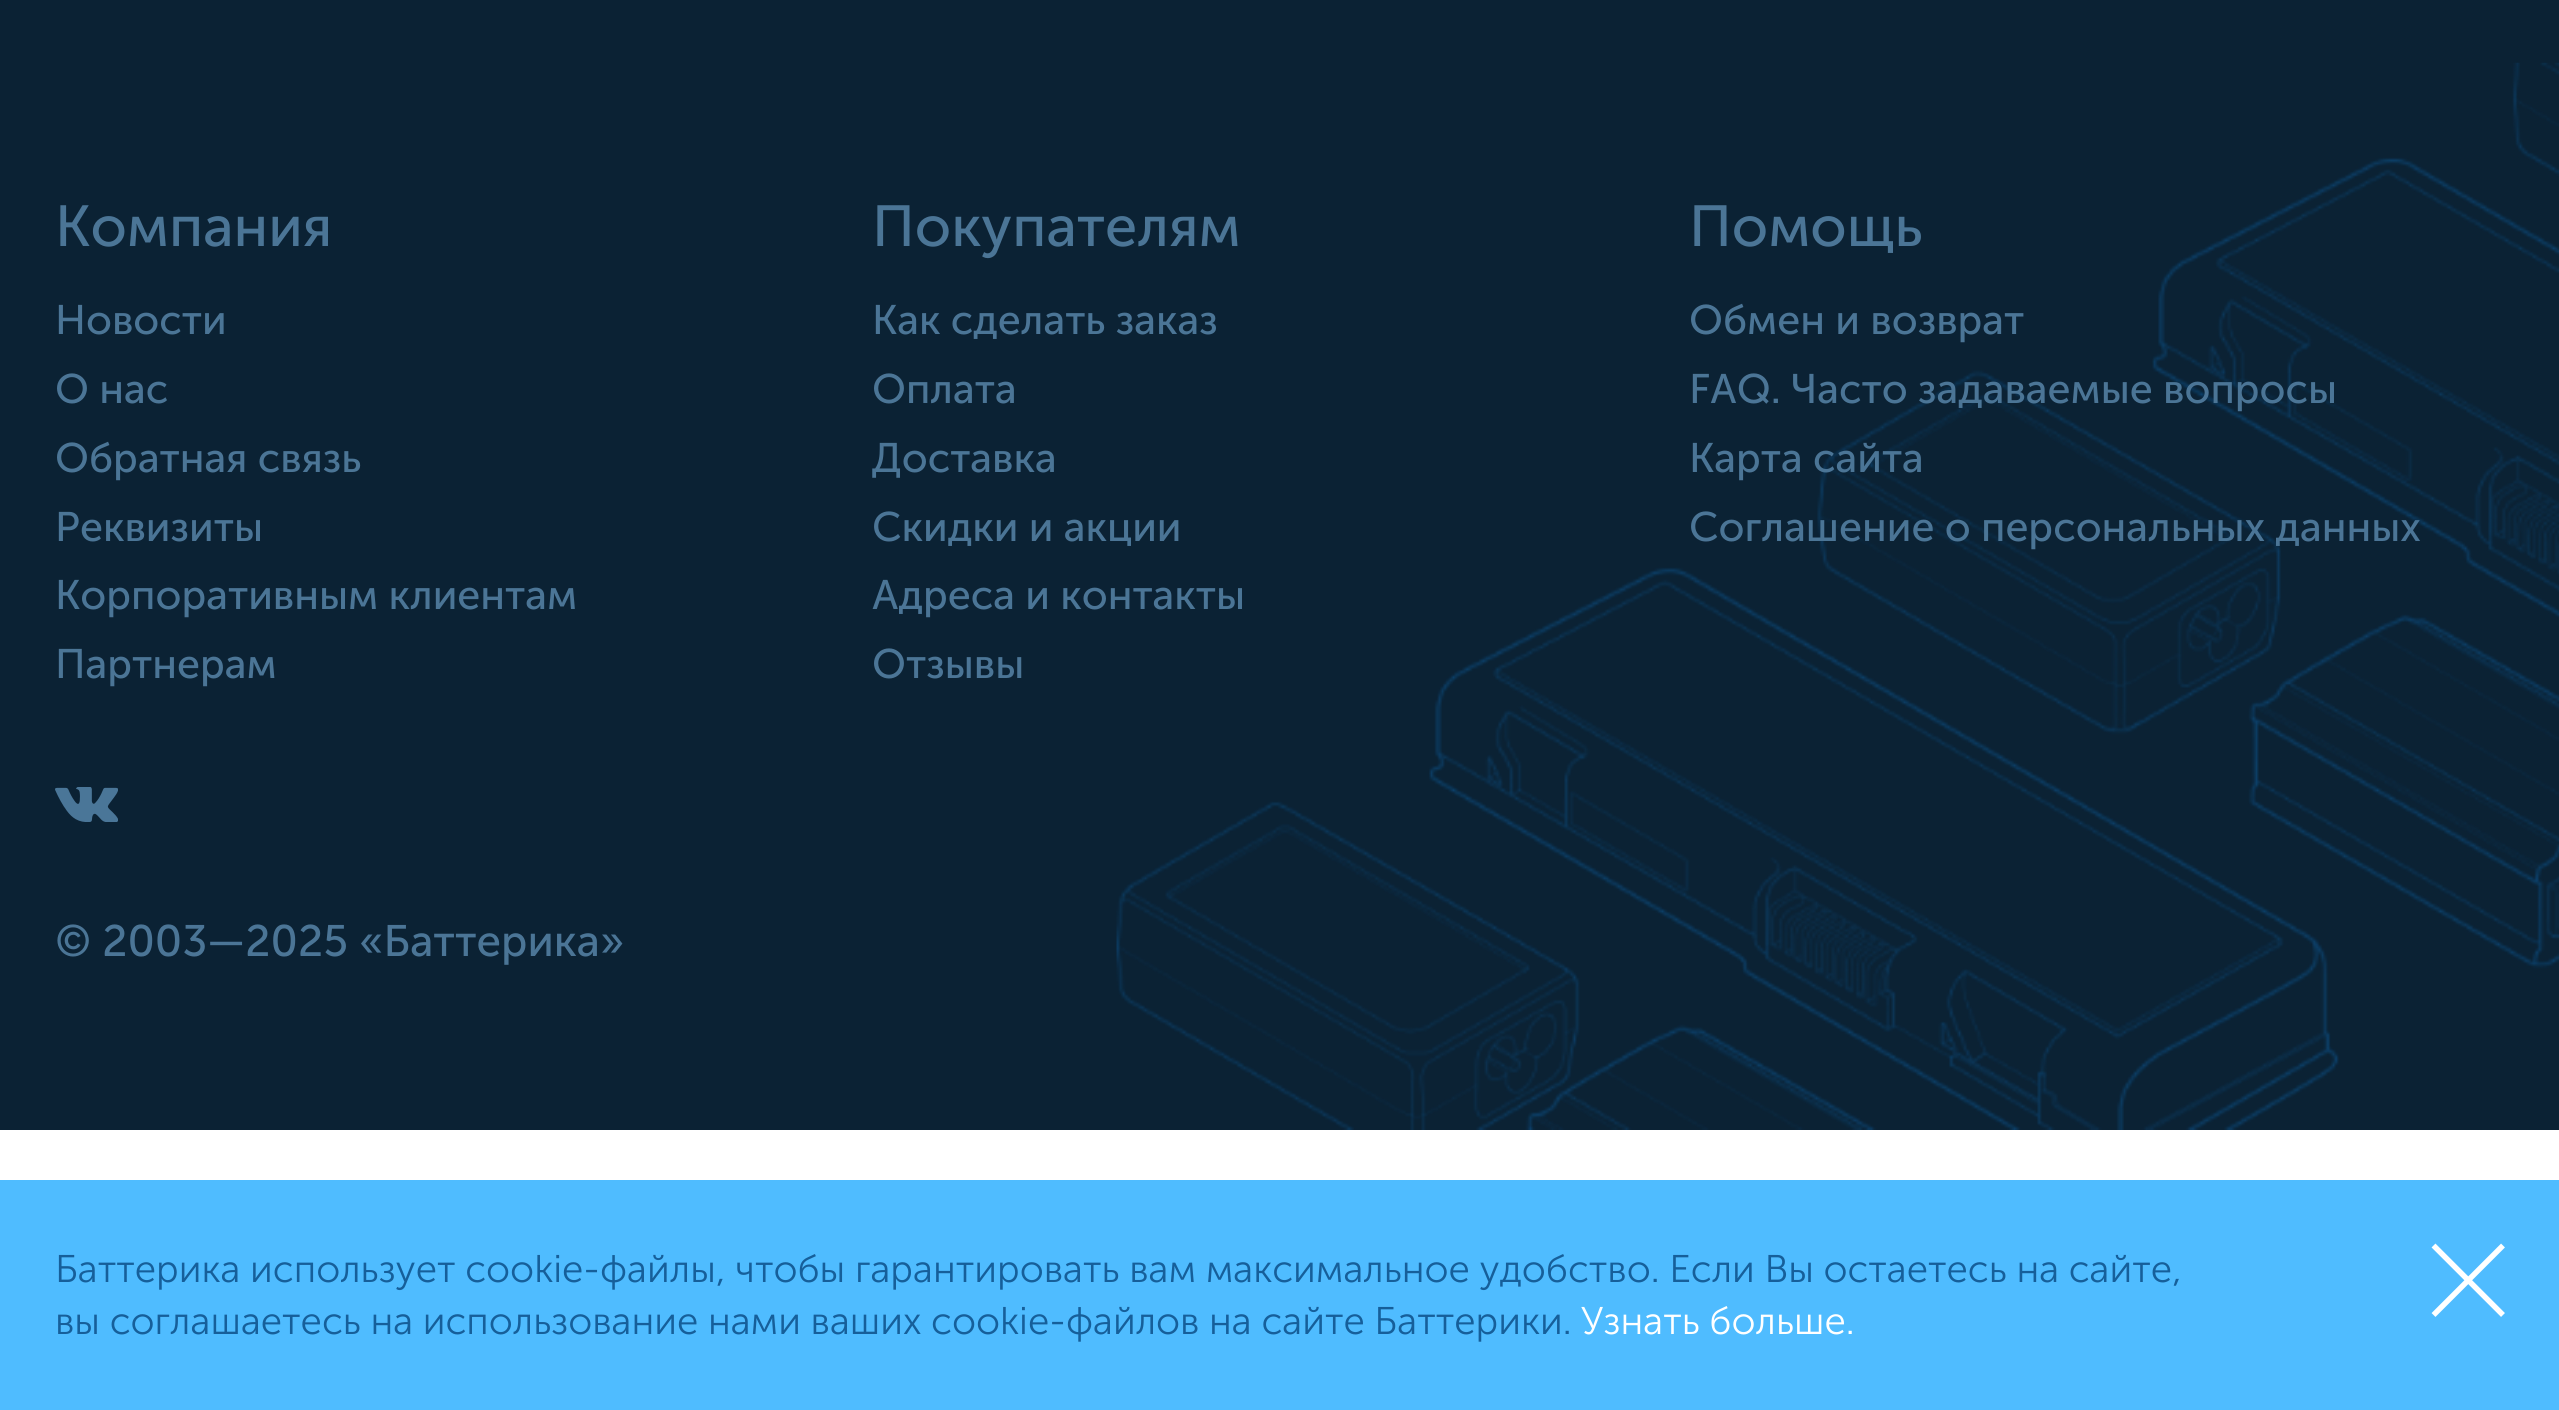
#include <cairo.h>
#include <math.h>
#include <stddef.h>


static void picture(cairo_t *cr, const char *path, double x, double y, double w, double h) {
    cairo_surface_t *image = cairo_image_surface_create_from_png(path);
    cairo_save(cr);
    cairo_set_source_surface(cr, image, x, y);
    cairo_rectangle(cr, x, y, w, h);
    cairo_fill(cr);
    cairo_restore(cr);
    cairo_surface_destroy(image);
}

int main(void) {
    cairo_surface_t *surface = cairo_image_surface_create(CAIRO_FORMAT_RGB24, 2559, 1410);
    cairo_t *cr = cairo_create(surface);
    cairo_font_options_t *options = cairo_font_options_create();
    cairo_font_options_set_hint_metrics(options, CAIRO_HINT_METRICS_OFF);
    cairo_font_options_set_hint_style(options, CAIRO_HINT_STYLE_NONE);
    cairo_set_font_options(cr, options);
    cairo_set_miter_limit(cr, 4);
    cairo_set_source_rgb(cr, 1, 1, 1);
    cairo_paint(cr);
    cairo_set_source_rgb(cr, 0.043, 0.133, 0.204);
    cairo_rectangle(cr, 0, 0, 2559, 1130);
    cairo_fill(cr);
    picture(cr, "img1.png", 1116, 62, 1443, 1068);
    cairo_select_font_face(cr, "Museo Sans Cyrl", CAIRO_FONT_SLANT_NORMAL, CAIRO_FONT_WEIGHT_NORMAL);
    cairo_set_font_size(cr, 57.75);
    cairo_set_source_rgb(cr, 0.294, 0.459, 0.588);
    cairo_move_to(cr, 55, 246);
    cairo_show_text(cr, "Компания");
    cairo_set_font_size(cr, 41.25);
    cairo_move_to(cr, 55, 334);
    cairo_show_text(cr, "Новости");
    cairo_move_to(cr, 55, 403);
    cairo_show_text(cr, "О нас");
    cairo_move_to(cr, 55, 472);
    cairo_show_text(cr, "Обратная связь");
    cairo_move_to(cr, 55, 541);
    cairo_show_text(cr, "Реквизиты");
    cairo_move_to(cr, 55, 609);
    cairo_show_text(cr, "Корпоративным клиентам");
    cairo_move_to(cr, 55, 678);
    cairo_show_text(cr, "Партнерам");
    cairo_set_font_size(cr, 57.75);
    cairo_move_to(cr, 872, 246);
    cairo_show_text(cr, "Покупателям");
    cairo_set_font_size(cr, 41.25);
    cairo_move_to(cr, 872, 334);
    cairo_show_text(cr, "Как сделать заказ");
    cairo_move_to(cr, 872, 403);
    cairo_show_text(cr, "Оплата");
    cairo_move_to(cr, 872, 472);
    cairo_show_text(cr, "Доставка");
    cairo_move_to(cr, 872, 541);
    cairo_show_text(cr, "Скидки и акции");
    cairo_move_to(cr, 872, 609);
    cairo_show_text(cr, "Адреса и контакты");
    cairo_move_to(cr, 872, 678);
    cairo_show_text(cr, "Отзывы");
    cairo_set_font_size(cr, 57.75);
    cairo_move_to(cr, 1689, 246);
    cairo_show_text(cr, "Помощь");
    cairo_set_font_size(cr, 41.25);
    cairo_move_to(cr, 1689, 334);
    cairo_show_text(cr, "Обмен и возврат");
    cairo_move_to(cr, 1689, 403);
    cairo_show_text(cr, "FAQ. Часто задаваемые вопросы");
    cairo_move_to(cr, 1689, 472);
    cairo_show_text(cr, "Карта сайта");
    cairo_move_to(cr, 1689, 541);
    cairo_show_text(cr, "Соглашение о персональных данных");
    picture(cr, "img2.png", 55, 787, 63, 35);
    cairo_set_font_size(cr, 44);
    cairo_move_to(cr, 55, 956);
    cairo_show_text(cr, "© 2003—2025 «Баттерика»");
    cairo_set_source_rgb(cr, 0.31, 0.737, 1);
    cairo_rectangle(cr, 0, 1180, 2559, 230);
    cairo_fill(cr);
    cairo_select_font_face(cr, "Museo Sans Cyrl Light", CAIRO_FONT_SLANT_NORMAL, CAIRO_FONT_WEIGHT_NORMAL);
    cairo_set_font_size(cr, 38.5);
    cairo_set_source_rgb(cr, 0.086, 0.373, 0.604);
    cairo_move_to(cr, 55, 1282);
    cairo_show_text(cr, "Баттерика использует cookie-файлы, чтобы гарантировать вам максимальное удобство. Если Вы остаетесь на сайте,");
    cairo_move_to(cr, 55, 1334);
    cairo_show_text(cr, "вы соглашаетесь на использование нами ваших cookie-файлов на сайте Баттерики.");
    cairo_set_source_rgb(cr, 1, 1, 1);
    cairo_move_to(cr, 1581, 1334);
    cairo_show_text(cr, "Узнать больше.");
    cairo_new_path(cr);
    cairo_move_to(cr, 2503, 1245.5);
    cairo_line_to(cr, 2433.5, 1315);
    cairo_set_line_width(cr, 5.5);
    cairo_stroke(cr);
    cairo_new_path(cr);
    cairo_move_to(cr, 2433.5, 1245.5);
    cairo_line_to(cr, 2503, 1315);
    cairo_stroke(cr);
    cairo_surface_write_to_png(surface, "page.png");
    cairo_font_options_destroy(options);
    cairo_destroy(cr);
    cairo_surface_destroy(surface);
    return 0;
}
